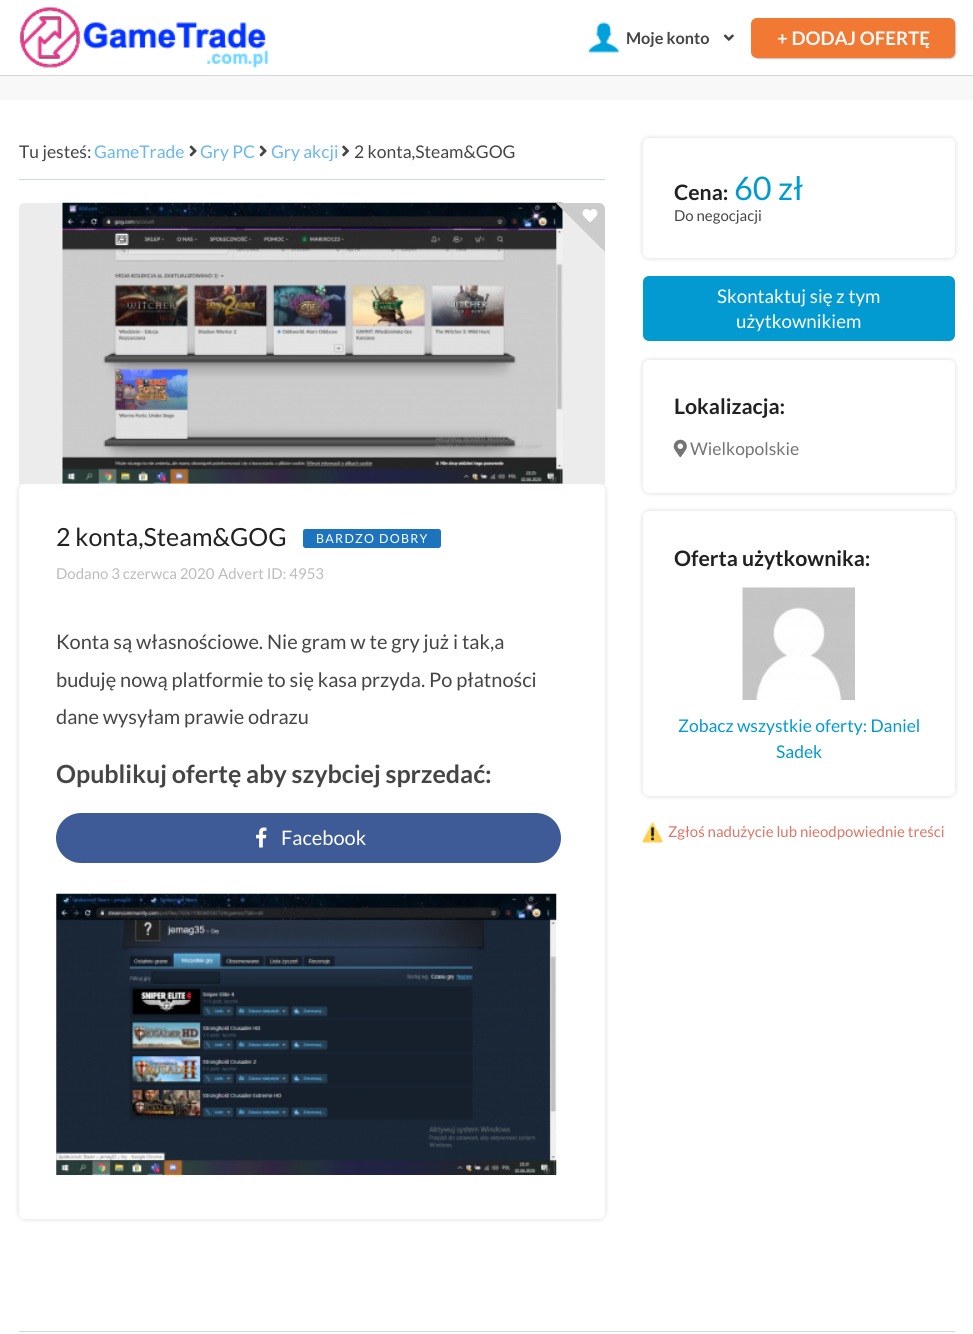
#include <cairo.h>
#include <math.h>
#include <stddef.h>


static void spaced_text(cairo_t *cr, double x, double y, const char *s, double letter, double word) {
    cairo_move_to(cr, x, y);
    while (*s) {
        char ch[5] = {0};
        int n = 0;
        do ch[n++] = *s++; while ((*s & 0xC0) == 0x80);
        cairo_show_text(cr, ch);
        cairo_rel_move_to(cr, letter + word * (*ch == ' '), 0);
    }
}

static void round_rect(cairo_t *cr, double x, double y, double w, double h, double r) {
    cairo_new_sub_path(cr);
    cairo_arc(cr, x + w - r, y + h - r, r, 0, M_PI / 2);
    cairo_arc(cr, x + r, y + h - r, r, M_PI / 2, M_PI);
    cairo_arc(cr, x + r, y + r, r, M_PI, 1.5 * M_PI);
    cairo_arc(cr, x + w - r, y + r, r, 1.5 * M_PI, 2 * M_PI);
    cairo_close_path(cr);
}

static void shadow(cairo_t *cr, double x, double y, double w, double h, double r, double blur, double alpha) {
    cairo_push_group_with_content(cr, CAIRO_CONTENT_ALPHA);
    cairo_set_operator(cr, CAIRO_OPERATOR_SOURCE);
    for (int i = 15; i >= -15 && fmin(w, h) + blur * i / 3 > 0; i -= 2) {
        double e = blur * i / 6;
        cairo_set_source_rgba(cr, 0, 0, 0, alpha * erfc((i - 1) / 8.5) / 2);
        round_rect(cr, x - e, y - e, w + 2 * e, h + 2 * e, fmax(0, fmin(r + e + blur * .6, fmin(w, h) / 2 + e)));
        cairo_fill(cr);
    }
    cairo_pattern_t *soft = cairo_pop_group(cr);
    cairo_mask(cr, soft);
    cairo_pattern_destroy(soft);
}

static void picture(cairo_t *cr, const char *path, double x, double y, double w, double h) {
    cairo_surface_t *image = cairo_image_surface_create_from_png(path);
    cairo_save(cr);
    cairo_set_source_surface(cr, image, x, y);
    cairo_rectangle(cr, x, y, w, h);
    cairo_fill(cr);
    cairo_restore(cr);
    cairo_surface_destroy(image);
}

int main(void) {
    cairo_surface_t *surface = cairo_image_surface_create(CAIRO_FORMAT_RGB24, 973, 1334);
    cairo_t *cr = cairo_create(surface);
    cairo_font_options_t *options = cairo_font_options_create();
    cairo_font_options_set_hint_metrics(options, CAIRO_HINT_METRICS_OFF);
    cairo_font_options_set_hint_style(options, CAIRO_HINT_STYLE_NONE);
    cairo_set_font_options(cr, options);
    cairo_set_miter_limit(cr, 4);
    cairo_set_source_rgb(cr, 1, 1, 1);
    cairo_paint(cr);
    cairo_set_source_rgb(cr, 0.969, 0.969, 0.969);
    cairo_rectangle(cr, 0, 76, 973, 24);
    cairo_fill(cr);
    cairo_set_source_rgb(cr, 0.824, 0.843, 0.855);
    cairo_rectangle(cr, 0, 75, 973, 1);
    cairo_fill(cr);
    picture(cr, "img1.png", 19, 7, 250, 61);
    picture(cr, "img2.png", 588, 22, 31, 31);
    cairo_select_font_face(cr, "Lato", CAIRO_FONT_SLANT_NORMAL, CAIRO_FONT_WEIGHT_BOLD);
    cairo_set_font_size(cr, 16.25);
    cairo_set_source_rgb(cr, 0.271, 0.271, 0.271);
    cairo_move_to(cr, 626, 44);
    cairo_show_text(cr, "Moje konto");
    picture(cr, "img3.png", 723, 34, 11, 7);
    cairo_set_source_rgb(cr, 0, 0, 0);
    shadow(cr, 753, 19, 203, 40, 6, 0.5, 0.24);
    cairo_set_source_rgb(cr, 0.949, 0.475, 0.2);
    round_rect(cr, 751, 18, 204, 40, 6);
    cairo_fill(cr);
    cairo_set_font_size(cr, 18.75);
    cairo_set_source_rgb(cr, 0.969, 0.969, 0.969);
    cairo_move_to(cr, 777, 45);
    cairo_show_text(cr, "+ DODAJ OFERTĘ");
    cairo_set_source_rgb(cr, 0.824, 0.843, 0.855);
    cairo_rectangle(cr, 19, 179, 586, 1);
    cairo_fill(cr);
    cairo_select_font_face(cr, "Lato", CAIRO_FONT_SLANT_NORMAL, CAIRO_FONT_WEIGHT_NORMAL);
    cairo_set_font_size(cr, 17.5);
    cairo_set_source_rgb(cr, 0.271, 0.271, 0.271);
    cairo_move_to(cr, 19, 158);
    cairo_show_text(cr, "Tu jesteś:");
    cairo_set_source_rgb(cr, 0.412, 0.714, 0.957);
    cairo_move_to(cr, 94, 158);
    cairo_show_text(cr, "GameTrade");
    picture(cr, "img4.png", 189, 145, 8, 12);
    cairo_move_to(cr, 200, 158);
    cairo_show_text(cr, "Gry PC");
    picture(cr, "img4.png", 259, 145, 8, 12);
    cairo_move_to(cr, 271, 158);
    cairo_show_text(cr, "Gry akcji");
    picture(cr, "img5.png", 342, 145, 8, 12);
    cairo_set_source_rgb(cr, 0.271, 0.271, 0.271);
    cairo_move_to(cr, 354, 158);
    cairo_show_text(cr, "2 konta,Steam&GOG");
    cairo_set_source_rgb(cr, 0, 0, 0);
    shadow(cr, 19, 484, 586, 735, 6, 2.5, 0.15);
    cairo_set_source_rgb(cr, 0.925, 0.925, 0.925);
    cairo_new_path(cr);
    cairo_move_to(cr, 25, 203);
    cairo_line_to(cr, 599, 203);
    cairo_curve_to(cr, 602.5, 203, 605, 205.5, 605, 209);
    cairo_line_to(cr, 605, 484);
    cairo_line_to(cr, 19, 484);
    cairo_line_to(cr, 19, 209);
    cairo_curve_to(cr, 19, 205.5, 21.5, 203, 25, 203);
    cairo_close_path(cr);
    cairo_fill(cr);
    picture(cr, "img6.png", 62, 202, 501, 282);
    cairo_set_source_rgb(cr, 0.8, 0.8, 0.8);
    cairo_new_path(cr);
    cairo_move_to(cr, 605, 252);
    cairo_line_to(cr, 605, 209);
    cairo_curve_to(cr, 605, 206, 602, 203, 599, 203);
    cairo_line_to(cr, 556, 203);
    cairo_close_path(cr);
    cairo_fill(cr);
    picture(cr, "img7.png", 582, 209, 16, 13);
    cairo_set_source_rgb(cr, 1, 1, 1);
    round_rect(cr, 19, 484, 586, 735, 6);
    cairo_fill(cr);
    cairo_set_font_size(cr, 25);
    cairo_set_source_rgb(cr, 0.129, 0.129, 0.129);
    cairo_move_to(cr, 56, 546);
    cairo_show_text(cr, "2 konta,Steam&GOG");
    cairo_set_source_rgb(cr, 0.118, 0.451, 0.745);
    round_rect(cr, 303, 529, 138, 19, 2.5);
    cairo_fill(cr);
    cairo_set_font_size(cr, 12.5);
    cairo_set_source_rgb(cr, 1, 1, 1);
    spaced_text(cr, 316, 543, "BARDZO DOBRY", 1.25, 0);
    cairo_set_font_size(cr, 15);
    cairo_set_source_rgb(cr, 0.737, 0.737, 0.737);
    cairo_move_to(cr, 56, 579);
    cairo_show_text(cr, "Dodano 3 czerwca 2020");
    cairo_move_to(cr, 218, 579);
    cairo_show_text(cr, "Advert ID: 4953");
    cairo_set_font_size(cr, 20);
    cairo_set_source_rgb(cr, 0.271, 0.271, 0.271);
    cairo_move_to(cr, 56, 649);
    cairo_show_text(cr, "Konta są własnościowe. Nie gram w te gry już i tak,a");
    cairo_move_to(cr, 56, 687);
    cairo_show_text(cr, "buduję nową platformie to się kasa przyda. Po płatności");
    cairo_move_to(cr, 56, 724);
    cairo_show_text(cr, "dane wysyłam prawie odrazu");
    cairo_select_font_face(cr, "Lato", CAIRO_FONT_SLANT_NORMAL, CAIRO_FONT_WEIGHT_BOLD);
    cairo_set_font_size(cr, 25);
    cairo_move_to(cr, 56, 783);
    cairo_show_text(cr, "Opublikuj ofertę aby szybciej sprzedać:");
    cairo_set_source_rgb(cr, 0.243, 0.357, 0.596);
    round_rect(cr, 56, 813, 505, 50, 25);
    cairo_fill(cr);
    picture(cr, "img8.png", 256, 827, 11, 21);
    cairo_select_font_face(cr, "Lato", CAIRO_FONT_SLANT_NORMAL, CAIRO_FONT_WEIGHT_NORMAL);
    cairo_set_font_size(cr, 20);
    cairo_set_source_rgb(cr, 1, 1, 1);
    cairo_move_to(cr, 281, 845);
    cairo_show_text(cr, "Facebook");
    picture(cr, "img9.png", 56, 893, 501, 282);
    cairo_set_source_rgb(cr, 0, 0, 0);
    shadow(cr, 643, 138, 312, 120, 6, 2.5, 0.15);
    cairo_set_source_rgb(cr, 1, 1, 1);
    round_rect(cr, 643, 138, 312, 120, 6);
    cairo_fill(cr);
    cairo_select_font_face(cr, "Lato", CAIRO_FONT_SLANT_NORMAL, CAIRO_FONT_WEIGHT_BOLD);
    cairo_set_font_size(cr, 21.25);
    cairo_set_source_rgb(cr, 0.129, 0.129, 0.129);
    cairo_move_to(cr, 674, 200);
    cairo_show_text(cr, "Cena:");
    cairo_select_font_face(cr, "Lato", CAIRO_FONT_SLANT_NORMAL, CAIRO_FONT_WEIGHT_NORMAL);
    cairo_set_font_size(cr, 32.5);
    cairo_set_source_rgb(cr, 0.012, 0.604, 0.824);
    cairo_move_to(cr, 734, 200);
    cairo_show_text(cr, "60 zł");
    cairo_set_font_size(cr, 15);
    cairo_set_source_rgb(cr, 0.271, 0.271, 0.271);
    cairo_move_to(cr, 674, 221);
    cairo_show_text(cr, "Do negocjacji");
    cairo_set_source_rgb(cr, 0.012, 0.604, 0.824);
    round_rect(cr, 643, 276, 312, 65, 6);
    cairo_fill(cr);
    cairo_set_font_size(cr, 18.75);
    cairo_set_source_rgb(cr, 1, 1, 1);
    cairo_move_to(cr, 717, 303);
    cairo_show_text(cr, "Skontaktuj się z tym");
    cairo_move_to(cr, 736, 328);
    cairo_show_text(cr, "użytkownikiem");
    cairo_set_source_rgb(cr, 0, 0, 0);
    shadow(cr, 643, 360, 312, 133, 6, 2.5, 0.15);
    cairo_set_source_rgb(cr, 1, 1, 1);
    round_rect(cr, 643, 360, 312, 133, 6);
    cairo_fill(cr);
    cairo_select_font_face(cr, "Lato", CAIRO_FONT_SLANT_NORMAL, CAIRO_FONT_WEIGHT_BOLD);
    cairo_set_font_size(cr, 21.25);
    cairo_set_source_rgb(cr, 0.129, 0.129, 0.129);
    cairo_move_to(cr, 674, 414);
    cairo_show_text(cr, "Lokalizacja:");
    picture(cr, "img10.png", 673, 439, 14, 19);
    cairo_select_font_face(cr, "Lato", CAIRO_FONT_SLANT_NORMAL, CAIRO_FONT_WEIGHT_NORMAL);
    cairo_set_font_size(cr, 17.5);
    cairo_set_source_rgb(cr, 0.459, 0.459, 0.459);
    cairo_move_to(cr, 690, 455);
    cairo_show_text(cr, "Wielkopolskie");
    cairo_set_source_rgb(cr, 0, 0, 0);
    shadow(cr, 643, 511, 312, 285, 6, 2.5, 0.15);
    cairo_set_source_rgb(cr, 1, 1, 1);
    round_rect(cr, 643, 511, 312, 285, 6);
    cairo_fill(cr);
    cairo_select_font_face(cr, "Lato", CAIRO_FONT_SLANT_NORMAL, CAIRO_FONT_WEIGHT_BOLD);
    cairo_set_font_size(cr, 21.25);
    cairo_set_source_rgb(cr, 0.129, 0.129, 0.129);
    cairo_move_to(cr, 674, 566);
    cairo_show_text(cr, "Oferta użytkownika:");
    picture(cr, "img11.png", 742, 587, 113, 113);
    cairo_select_font_face(cr, "Lato", CAIRO_FONT_SLANT_NORMAL, CAIRO_FONT_WEIGHT_NORMAL);
    cairo_set_font_size(cr, 17.5);
    cairo_set_source_rgb(cr, 0.012, 0.604, 0.824);
    cairo_move_to(cr, 678, 732);
    cairo_show_text(cr, "Zobacz wszystkie oferty: Daniel");
    cairo_move_to(cr, 776, 758);
    cairo_show_text(cr, "Sadek");
    picture(cr, "img12.png", 642, 822, 21, 21);
    cairo_set_font_size(cr, 15);
    cairo_set_source_rgb(cr, 0.871, 0.459, 0.4);
    cairo_move_to(cr, 668, 837);
    cairo_show_text(cr, "Zgłoś nadużycie lub nieodpowiednie treści");
    cairo_set_source_rgb(cr, 0.824, 0.843, 0.855);
    cairo_rectangle(cr, 19, 1331, 936, 1);
    cairo_fill(cr);
    cairo_surface_write_to_png(surface, "page.png");
    cairo_font_options_destroy(options);
    cairo_destroy(cr);
    cairo_surface_destroy(surface);
    return 0;
}
